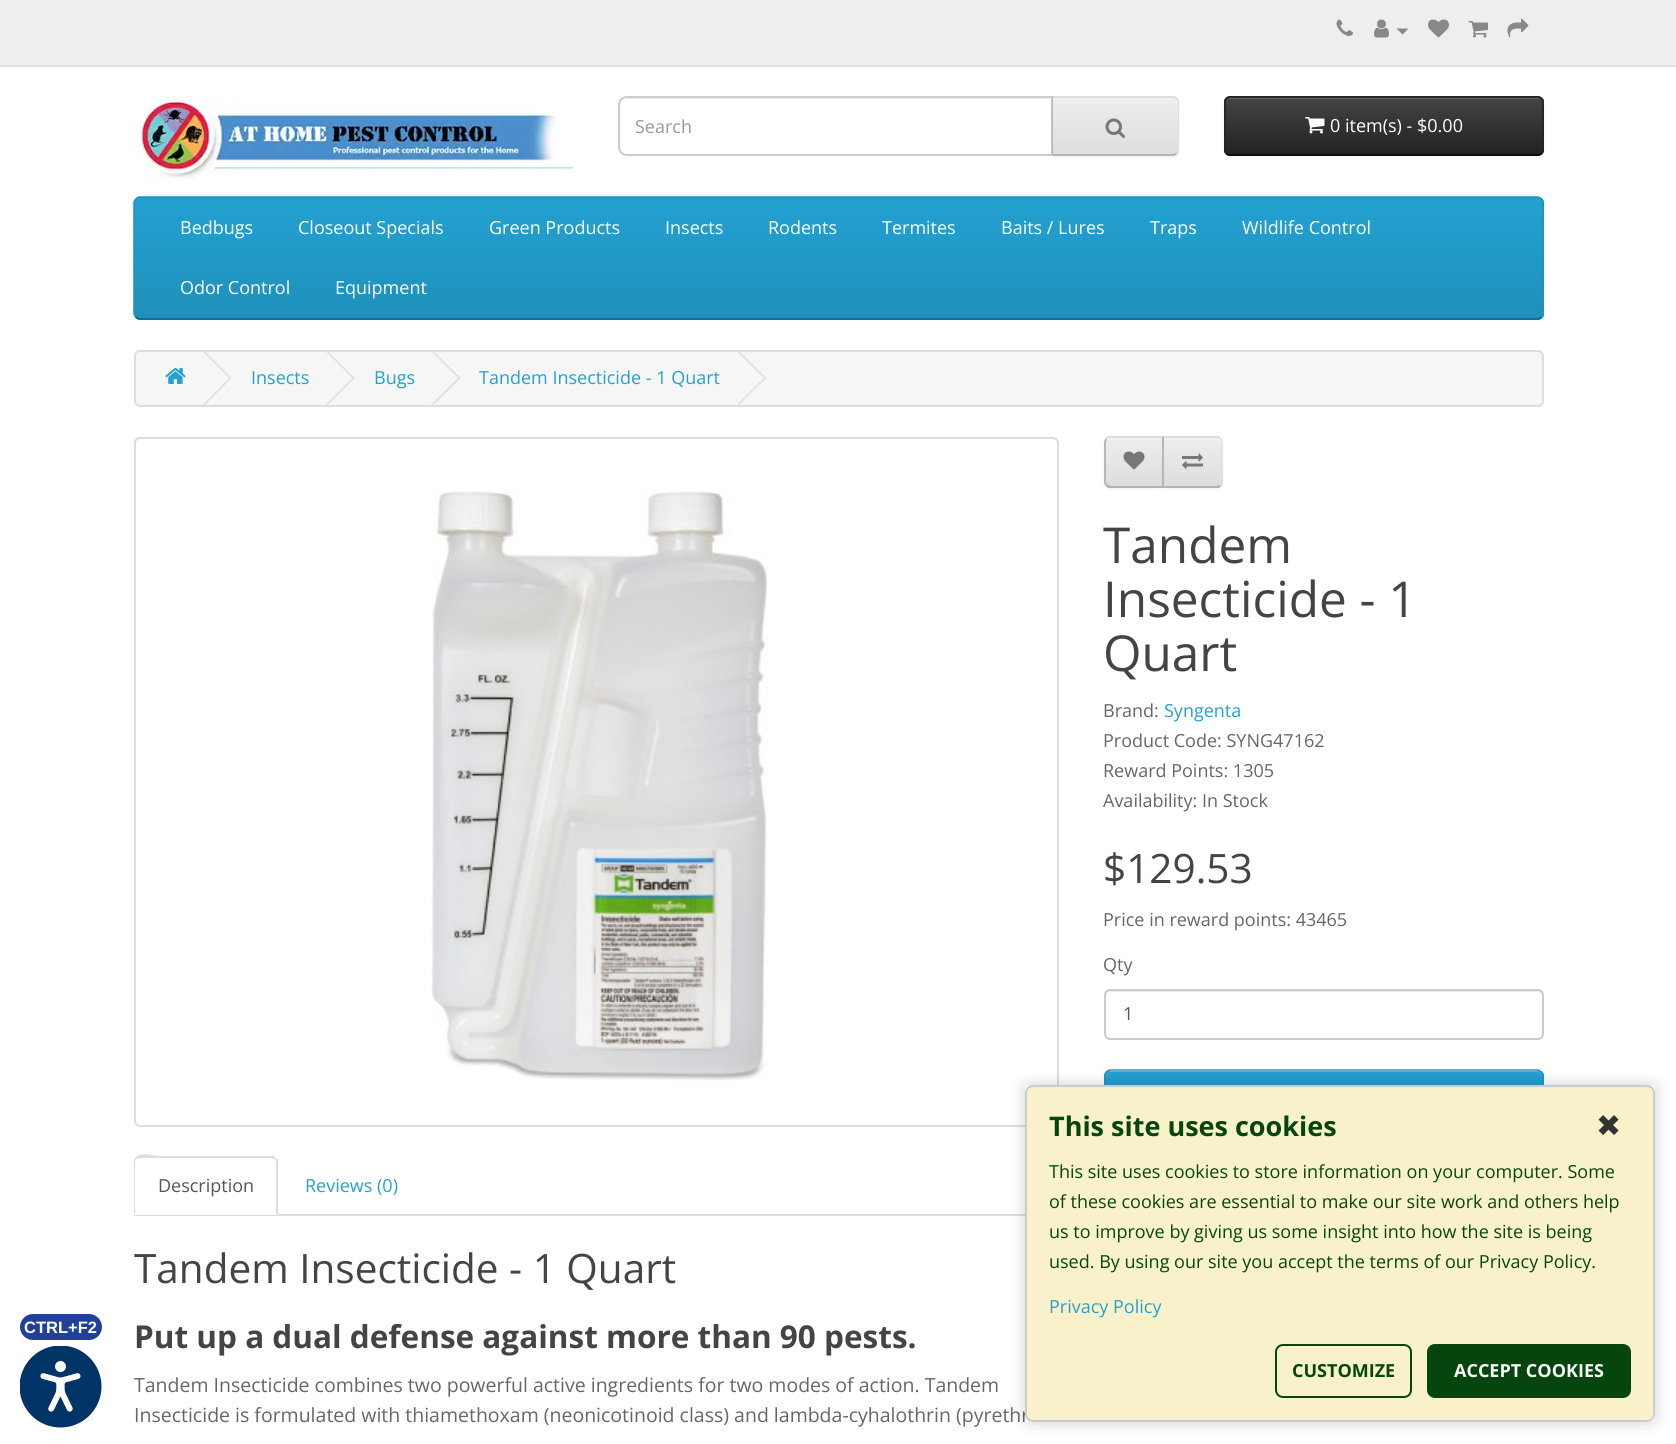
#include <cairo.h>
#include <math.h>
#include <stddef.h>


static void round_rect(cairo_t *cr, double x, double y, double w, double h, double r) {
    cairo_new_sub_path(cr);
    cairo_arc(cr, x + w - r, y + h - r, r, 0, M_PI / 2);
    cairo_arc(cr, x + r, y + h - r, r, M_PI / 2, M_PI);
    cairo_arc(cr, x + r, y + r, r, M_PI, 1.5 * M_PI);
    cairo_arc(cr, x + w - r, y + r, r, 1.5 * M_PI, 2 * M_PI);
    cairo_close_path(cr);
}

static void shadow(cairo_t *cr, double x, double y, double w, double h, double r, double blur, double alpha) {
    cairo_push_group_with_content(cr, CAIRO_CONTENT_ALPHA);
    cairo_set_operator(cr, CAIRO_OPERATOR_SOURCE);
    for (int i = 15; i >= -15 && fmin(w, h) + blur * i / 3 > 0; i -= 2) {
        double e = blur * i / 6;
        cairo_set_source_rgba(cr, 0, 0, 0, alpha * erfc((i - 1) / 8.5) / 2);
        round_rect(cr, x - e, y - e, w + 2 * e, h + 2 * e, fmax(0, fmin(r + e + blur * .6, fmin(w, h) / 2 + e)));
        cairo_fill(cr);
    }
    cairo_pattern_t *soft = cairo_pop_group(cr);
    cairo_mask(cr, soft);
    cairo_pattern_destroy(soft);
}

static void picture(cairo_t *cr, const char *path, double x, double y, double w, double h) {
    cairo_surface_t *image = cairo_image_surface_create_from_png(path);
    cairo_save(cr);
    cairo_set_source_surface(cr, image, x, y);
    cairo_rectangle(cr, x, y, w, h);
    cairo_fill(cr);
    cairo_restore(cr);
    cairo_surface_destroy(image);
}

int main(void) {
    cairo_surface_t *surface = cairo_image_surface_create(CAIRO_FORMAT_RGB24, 1676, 1444);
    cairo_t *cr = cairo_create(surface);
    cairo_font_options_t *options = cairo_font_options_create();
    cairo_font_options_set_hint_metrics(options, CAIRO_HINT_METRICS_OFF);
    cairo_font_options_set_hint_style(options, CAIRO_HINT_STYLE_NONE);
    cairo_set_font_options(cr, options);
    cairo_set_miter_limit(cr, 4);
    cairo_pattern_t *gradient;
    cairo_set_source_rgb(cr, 1, 1, 1);
    cairo_paint(cr);
    cairo_set_source_rgb(cr, 0.933, 0.933, 0.933);
    cairo_rectangle(cr, 0, 0, 1676, 65);
    cairo_fill(cr);
    cairo_set_source_rgb(cr, 0.886, 0.886, 0.886);
    cairo_rectangle(cr, 0, 65, 1676, 2);
    cairo_fill(cr);
    picture(cr, "img1.png", 1336, 19, 17, 17);
    picture(cr, "img2.png", 1374, 19, 15, 19);
    cairo_set_source_rgb(cr, 0.533, 0.533, 0.533);
    cairo_new_path(cr);
    cairo_move_to(cr, 1396.5, 28.5);
    cairo_line_to(cr, 1408.5, 28.5);
    cairo_line_to(cr, 1402.5, 34.5);
    cairo_close_path(cr);
    cairo_fill(cr);
    picture(cr, "img3.png", 1428, 19, 21, 19);
    picture(cr, "img4.png", 1468, 21, 20, 17);
    picture(cr, "img5.png", 1507, 18, 22, 20);
    picture(cr, "img6.png", 140, 99, 433, 81);
    cairo_set_source_rgb(cr, 0.925, 0.925, 0.925);
    cairo_new_path(cr);
    cairo_move_to(cr, 627, 99);
    cairo_line_to(cr, 1052, 99);
    cairo_line_to(cr, 1052, 98);
    cairo_line_to(cr, 628, 98);
    cairo_curve_to(cr, 624, 98, 620, 102, 620, 106);
    cairo_curve_to(cr, 620, 102, 623, 99, 627, 99);
    cairo_close_path(cr);
    cairo_fill(cr);
    cairo_new_path(cr);
    cairo_move_to(cr, 627, 97);
    cairo_line_to(cr, 1052, 97);
    cairo_line_to(cr, 1052, 155);
    cairo_line_to(cr, 627, 155);
    cairo_curve_to(cr, 622.5, 155, 619, 151.5, 619, 147);
    cairo_line_to(cr, 619, 105);
    cairo_curve_to(cr, 619, 100.5, 622.5, 97, 627, 97);
    cairo_close_path(cr);
    cairo_set_source_rgb(cr, 0.8, 0.8, 0.8);
    cairo_stroke(cr);
    cairo_select_font_face(cr, "Open Sans", CAIRO_FONT_SLANT_NORMAL, CAIRO_FONT_WEIGHT_NORMAL);
    cairo_set_font_size(cr, 18);
    cairo_set_source_rgb(cr, 0.6, 0.6, 0.6);
    cairo_move_to(cr, 635, 133);
    cairo_show_text(cr, "Search");
    cairo_set_source_rgb(cr, 0, 0, 0);
    shadow(cr, 1052, 98, 127, 60, 6, 1.5, 0.05);
    cairo_set_source_rgb(cr, 0.906, 0.906, 0.906);
    cairo_new_path(cr);
    cairo_move_to(cr, 1052, 96);
    cairo_line_to(cr, 1173, 96);
    cairo_curve_to(cr, 1176.5, 96, 1179, 98.5, 1179, 102);
    cairo_line_to(cr, 1179, 150);
    cairo_curve_to(cr, 1179, 153.5, 1176.5, 156, 1173, 156);
    cairo_line_to(cr, 1052, 156);
    cairo_close_path(cr);
    cairo_fill(cr);
    cairo_save(cr);
    cairo_new_path(cr);
    cairo_move_to(cr, 1052, 96);
    cairo_line_to(cr, 1173, 96);
    cairo_curve_to(cr, 1176.5, 96, 1179, 98.5, 1179, 102);
    cairo_line_to(cr, 1179, 150);
    cairo_curve_to(cr, 1179, 153.5, 1176.5, 156, 1173, 156);
    cairo_line_to(cr, 1052, 156);
    cairo_close_path(cr);
    cairo_clip(cr);
    gradient = cairo_pattern_create_linear(1115, 98, 1115, 155);
    cairo_pattern_add_color_stop_rgba(gradient, 0, 0.933, 0.933, 0.933, 1);
    cairo_pattern_add_color_stop_rgba(gradient, 1, 0.867, 0.867, 0.867, 1);
    cairo_set_source(cr, gradient);
    cairo_pattern_destroy(gradient);
    cairo_rectangle(cr, 1053, 98, 126, 57);
    cairo_fill(cr);
    cairo_restore(cr);
    cairo_set_source_rgb(cr, 0.945, 0.945, 0.945);
    cairo_new_path(cr);
    cairo_move_to(cr, 1053, 99);
    cairo_line_to(cr, 1173, 99);
    cairo_curve_to(cr, 1175, 99, 1178, 101, 1178, 104);
    cairo_line_to(cr, 1178, 103);
    cairo_curve_to(cr, 1178, 100, 1176, 98, 1173, 98);
    cairo_line_to(cr, 1053, 98);
    cairo_close_path(cr);
    cairo_fill(cr);
    cairo_set_source_rgb(cr, 0.867, 0.867, 0.867);
    cairo_new_path(cr);
    cairo_move_to(cr, 1052, 96);
    cairo_line_to(cr, 1054, 98);
    cairo_line_to(cr, 1173, 98);
    cairo_line_to(cr, 1176, 99);
    cairo_line_to(cr, 1177, 98);
    cairo_curve_to(cr, 1176, 97, 1174, 96, 1173, 96);
    cairo_close_path(cr);
    cairo_fill(cr);
    cairo_new_path(cr);
    cairo_move_to(cr, 1179, 150);
    cairo_line_to(cr, 1179, 102);
    cairo_curve_to(cr, 1179, 100, 1178, 99, 1177, 98);
    cairo_line_to(cr, 1176, 99);
    cairo_curve_to(cr, 1177, 100, 1178, 101, 1178, 102);
    cairo_line_to(cr, 1178, 150);
    cairo_curve_to(cr, 1178, 151, 1177, 152, 1176, 153);
    cairo_line_to(cr, 1177, 154);
    cairo_curve_to(cr, 1178, 153, 1179, 152, 1179, 150);
    cairo_close_path(cr);
    cairo_fill(cr);
    cairo_set_source_rgb(cr, 0.702, 0.702, 0.702);
    cairo_new_path(cr);
    cairo_move_to(cr, 1052, 156);
    cairo_line_to(cr, 1174, 156);
    cairo_line_to(cr, 1177, 154);
    cairo_line_to(cr, 1176, 153);
    cairo_line_to(cr, 1173, 154);
    cairo_line_to(cr, 1054, 154);
    cairo_close_path(cr);
    cairo_fill(cr);
    cairo_set_source_rgb(cr, 0.718, 0.718, 0.718);
    cairo_new_path(cr);
    cairo_move_to(cr, 1053, 98);
    cairo_line_to(cr, 1054, 98);
    cairo_line_to(cr, 1052, 96);
    cairo_line_to(cr, 1052, 156);
    cairo_line_to(cr, 1054, 154);
    cairo_line_to(cr, 1053, 154);
    cairo_close_path(cr);
    cairo_fill(cr);
    picture(cr, "img7.png", 1105, 118, 20, 20);
    cairo_set_source_rgb(cr, 0, 0, 0);
    shadow(cr, 1224, 98, 320, 60, 6, 1.5, 0.05);
    cairo_set_source_rgb(cr, 0.212, 0.212, 0.212);
    round_rect(cr, 1224, 96, 320, 60, 6);
    cairo_fill(cr);
    cairo_save(cr);
    round_rect(cr, 1224, 96, 320, 60, 6);
    cairo_clip(cr);
    gradient = cairo_pattern_create_linear(1384, 97, 1384, 155);
    cairo_pattern_add_color_stop_rgba(gradient, 0, 0.267, 0.267, 0.267, 1);
    cairo_pattern_add_color_stop_rgba(gradient, 1, 0.133, 0.133, 0.133, 1);
    cairo_set_source(cr, gradient);
    cairo_pattern_destroy(gradient);
    cairo_rectangle(cr, 1224, 98, 320, 57);
    cairo_fill(cr);
    cairo_restore(cr);
    cairo_set_source_rgb(cr, 0.412, 0.412, 0.412);
    cairo_new_path(cr);
    cairo_move_to(cr, 1230, 99);
    cairo_line_to(cr, 1538, 99);
    cairo_curve_to(cr, 1540, 99, 1542, 101, 1542, 104);
    cairo_curve_to(cr, 1542, 101, 1540, 98, 1537, 98);
    cairo_line_to(cr, 1231, 98);
    cairo_curve_to(cr, 1228, 98, 1226, 101, 1226, 104);
    cairo_curve_to(cr, 1226, 101, 1228, 99, 1230, 99);
    cairo_close_path(cr);
    cairo_fill(cr);
    cairo_new_path(cr);
    cairo_move_to(cr, 1541, 153.5);
    cairo_curve_to(cr, 1540, 154.5, 1539, 155, 1537.5, 155);
    cairo_line_to(cr, 1230, 155);
    cairo_curve_to(cr, 1228.5, 155, 1227.5, 154.5, 1226.5, 153.5);
    cairo_set_source_rgb(cr, 0, 0, 0);
    cairo_set_line_width(cr, 1.5);
    cairo_stroke(cr);
    cairo_new_path(cr);
    cairo_move_to(cr, 1226.5, 153.5);
    cairo_curve_to(cr, 1225.5, 152.5, 1225, 151.5, 1225, 150);
    cairo_line_to(cr, 1225, 102);
    cairo_curve_to(cr, 1225, 100.5, 1225.5, 99.5, 1226.5, 98.5);
    cairo_curve_to(cr, 1227.5, 97.5, 1228.5, 97, 1230, 97);
    cairo_line_to(cr, 1537.5, 97);
    cairo_curve_to(cr, 1539, 97, 1540, 97.5, 1541, 98.5);
    cairo_curve_to(cr, 1542, 99.5, 1543, 100.5, 1543, 102);
    cairo_line_to(cr, 1543, 150);
    cairo_curve_to(cr, 1543, 151.5, 1542, 152.5, 1541, 153.5);
    cairo_set_source_rgb(cr, 0.133, 0.133, 0.133);
    cairo_stroke(cr);
    picture(cr, "img8.png", 1305, 117, 20, 17);
    cairo_set_source_rgb(cr, 1, 1, 1);
    cairo_move_to(cr, 1330, 132);
    cairo_show_text(cr, "0 item(s) - $0.00");
    cairo_set_source_rgb(cr, 0.133, 0.604, 0.784);
    round_rect(cr, 134, 197, 1410, 123, 6);
    cairo_fill(cr);
    cairo_save(cr);
    round_rect(cr, 134, 197, 1410, 123, 6);
    cairo_clip(cr);
    gradient = cairo_pattern_create_linear(839, 198, 839, 318);
    cairo_pattern_add_color_stop_rgba(gradient, 0, 0.137, 0.631, 0.82, 1);
    cairo_pattern_add_color_stop_rgba(gradient, 1, 0.122, 0.565, 0.733, 1);
    cairo_set_source(cr, gradient);
    cairo_pattern_destroy(gradient);
    cairo_rectangle(cr, 134, 198, 1410, 120);
    cairo_fill(cr);
    cairo_restore(cr);
    cairo_new_path(cr);
    cairo_move_to(cr, 1541, 317);
    cairo_curve_to(cr, 1540, 318, 1539, 319, 1537.5, 319);
    cairo_line_to(cr, 139.5, 319);
    cairo_curve_to(cr, 138, 319, 137, 318, 136, 317);
    cairo_set_source_rgb(cr, 0.078, 0.369, 0.478);
    cairo_stroke(cr);
    cairo_new_path(cr);
    cairo_move_to(cr, 136, 317);
    cairo_curve_to(cr, 135, 316, 134, 315, 134, 313.5);
    cairo_line_to(cr, 134, 202.5);
    cairo_curve_to(cr, 134, 201, 135, 200, 136, 199);
    cairo_curve_to(cr, 137, 198, 138, 197, 139.5, 197);
    cairo_line_to(cr, 1537.5, 197);
    cairo_curve_to(cr, 1539, 197, 1540, 198, 1541, 199);
    cairo_curve_to(cr, 1542, 200, 1543, 201, 1543, 202.5);
    cairo_line_to(cr, 1543, 313.5);
    cairo_curve_to(cr, 1543, 315, 1542, 316, 1541, 317);
    cairo_set_source_rgb(cr, 0.122, 0.565, 0.733);
    cairo_stroke(cr);
    cairo_set_source_rgb(cr, 1, 1, 1);
    cairo_move_to(cr, 180, 234);
    cairo_show_text(cr, "Bedbugs");
    cairo_move_to(cr, 298, 234);
    cairo_show_text(cr, "Closeout Specials");
    cairo_move_to(cr, 489, 234);
    cairo_show_text(cr, "Green Products");
    cairo_move_to(cr, 665, 234);
    cairo_show_text(cr, "Insects");
    cairo_move_to(cr, 768, 234);
    cairo_show_text(cr, "Rodents");
    cairo_move_to(cr, 882, 234);
    cairo_show_text(cr, "Termites");
    cairo_move_to(cr, 1001, 234);
    cairo_show_text(cr, "Baits / Lures");
    cairo_move_to(cr, 1150, 234);
    cairo_show_text(cr, "Traps");
    cairo_move_to(cr, 1242, 234);
    cairo_show_text(cr, "Wildlife Control");
    cairo_move_to(cr, 180, 294);
    cairo_show_text(cr, "Odor Control");
    cairo_move_to(cr, 335, 294);
    cairo_show_text(cr, "Equipment");
    cairo_set_source_rgb(cr, 0.961, 0.961, 0.961);
    round_rect(cr, 135, 351, 1408, 55, 5);
    cairo_fill_preserve(cr);
    cairo_set_source_rgb(cr, 0.867, 0.867, 0.867);
    cairo_set_line_width(cr, 2);
    cairo_stroke(cr);
    picture(cr, "img9.png", 165, 367, 21, 17);
    cairo_new_path(cr);
    cairo_move_to(cr, 203, 351.5);
    cairo_line_to(cr, 204, 350.5);
    cairo_line_to(cr, 231.5, 378);
    cairo_line_to(cr, 230.5, 379);
    cairo_close_path(cr);
    cairo_fill(cr);
    cairo_new_path(cr);
    cairo_move_to(cr, 203, 404.5);
    cairo_line_to(cr, 230.5, 377);
    cairo_line_to(cr, 231.5, 378);
    cairo_line_to(cr, 204, 405.5);
    cairo_close_path(cr);
    cairo_fill(cr);
    cairo_set_source_rgb(cr, 0.137, 0.631, 0.82);
    cairo_move_to(cr, 251, 384);
    cairo_show_text(cr, "Insects");
    cairo_set_source_rgb(cr, 0.867, 0.867, 0.867);
    cairo_new_path(cr);
    cairo_move_to(cr, 326, 351.5);
    cairo_line_to(cr, 327, 350.5);
    cairo_line_to(cr, 354.5, 378);
    cairo_line_to(cr, 353.5, 379);
    cairo_close_path(cr);
    cairo_fill(cr);
    cairo_new_path(cr);
    cairo_move_to(cr, 326, 404.5);
    cairo_line_to(cr, 353.5, 377);
    cairo_line_to(cr, 354.5, 378);
    cairo_line_to(cr, 327, 405.5);
    cairo_close_path(cr);
    cairo_fill(cr);
    cairo_set_source_rgb(cr, 0.137, 0.631, 0.82);
    cairo_move_to(cr, 374, 384);
    cairo_show_text(cr, "Bugs");
    cairo_set_source_rgb(cr, 0.867, 0.867, 0.867);
    cairo_new_path(cr);
    cairo_move_to(cr, 431.5, 351.5);
    cairo_line_to(cr, 432.5, 350.5);
    cairo_line_to(cr, 460.5, 378);
    cairo_line_to(cr, 459, 379);
    cairo_close_path(cr);
    cairo_fill(cr);
    cairo_new_path(cr);
    cairo_move_to(cr, 431.5, 404.5);
    cairo_line_to(cr, 459, 377);
    cairo_line_to(cr, 460.5, 378);
    cairo_line_to(cr, 432.5, 405.5);
    cairo_close_path(cr);
    cairo_fill(cr);
    cairo_set_source_rgb(cr, 0.137, 0.631, 0.82);
    cairo_move_to(cr, 479, 384);
    cairo_show_text(cr, "Tandem Insecticide - 1 Quart");
    cairo_set_source_rgb(cr, 0.867, 0.867, 0.867);
    cairo_new_path(cr);
    cairo_move_to(cr, 737.5, 351.5);
    cairo_line_to(cr, 738.5, 350.5);
    cairo_line_to(cr, 766, 378);
    cairo_line_to(cr, 765, 379);
    cairo_close_path(cr);
    cairo_fill(cr);
    cairo_new_path(cr);
    cairo_move_to(cr, 737.5, 404.5);
    cairo_line_to(cr, 765, 377);
    cairo_line_to(cr, 766, 378);
    cairo_line_to(cr, 738.5, 405.5);
    cairo_close_path(cr);
    cairo_fill(cr);
    cairo_set_source_rgb(cr, 0, 0, 0);
    shadow(cr, 1104, 438, 60, 51, 6, 1.5, 0.05);
    cairo_set_source_rgb(cr, 0.906, 0.906, 0.906);
    cairo_new_path(cr);
    cairo_move_to(cr, 1110, 437);
    cairo_line_to(cr, 1164, 437);
    cairo_line_to(cr, 1164, 488);
    cairo_line_to(cr, 1110, 488);
    cairo_curve_to(cr, 1106.5, 488, 1104, 485.5, 1104, 482);
    cairo_line_to(cr, 1104, 443);
    cairo_curve_to(cr, 1104, 439.5, 1106.5, 437, 1110, 437);
    cairo_close_path(cr);
    cairo_fill(cr);
    cairo_save(cr);
    cairo_new_path(cr);
    cairo_move_to(cr, 1110, 437);
    cairo_line_to(cr, 1164, 437);
    cairo_line_to(cr, 1164, 488);
    cairo_line_to(cr, 1110, 488);
    cairo_curve_to(cr, 1106.5, 488, 1104, 485.5, 1104, 482);
    cairo_line_to(cr, 1104, 443);
    cairo_curve_to(cr, 1104, 439.5, 1106.5, 437, 1110, 437);
    cairo_close_path(cr);
    cairo_clip(cr);
    gradient = cairo_pattern_create_linear(1134, 438, 1134, 486);
    cairo_pattern_add_color_stop_rgba(gradient, 0, 0.933, 0.933, 0.933, 1);
    cairo_pattern_add_color_stop_rgba(gradient, 1, 0.867, 0.867, 0.867, 1);
    cairo_set_source(cr, gradient);
    cairo_pattern_destroy(gradient);
    cairo_rectangle(cr, 1104, 438, 58, 48);
    cairo_fill(cr);
    cairo_restore(cr);
    cairo_set_source_rgba(cr, 1, 1, 1, 0.2);
    cairo_new_path(cr);
    cairo_move_to(cr, 1110, 440);
    cairo_line_to(cr, 1162, 440);
    cairo_line_to(cr, 1162, 486);
    cairo_line_to(cr, 1163, 486);
    cairo_line_to(cr, 1163, 438);
    cairo_line_to(cr, 1111, 438);
    cairo_curve_to(cr, 1108, 438, 1106, 440, 1106, 443);
    cairo_line_to(cr, 1106, 444);
    cairo_curve_to(cr, 1106, 442, 1108, 440, 1110, 440);
    cairo_close_path(cr);
    cairo_fill(cr);
    cairo_set_source_rgb(cr, 0.867, 0.867, 0.867);
    cairo_new_path(cr);
    cairo_move_to(cr, 1110, 438);
    cairo_curve_to(cr, 1109, 438, 1108, 439, 1107, 440);
    cairo_line_to(cr, 1106, 438);
    cairo_line_to(cr, 1108, 436);
    cairo_line_to(cr, 1164, 436);
    cairo_line_to(cr, 1162, 438);
    cairo_close_path(cr);
    cairo_fill(cr);
    cairo_set_source_rgb(cr, 0.702, 0.702, 0.702);
    cairo_new_path(cr);
    cairo_move_to(cr, 1164, 488);
    cairo_line_to(cr, 1108, 488);
    cairo_line_to(cr, 1106, 486);
    cairo_line_to(cr, 1107, 484);
    cairo_line_to(cr, 1110, 486);
    cairo_line_to(cr, 1162, 486);
    cairo_close_path(cr);
    cairo_fill(cr);
    cairo_set_source_rgb(cr, 0.718, 0.718, 0.718);
    cairo_new_path(cr);
    cairo_move_to(cr, 1104, 442);
    cairo_line_to(cr, 1104, 482);
    cairo_curve_to(cr, 1104, 483, 1105, 485, 1106, 486);
    cairo_line_to(cr, 1107, 484);
    cairo_line_to(cr, 1106, 482);
    cairo_line_to(cr, 1106, 442);
    cairo_line_to(cr, 1107, 440);
    cairo_line_to(cr, 1106, 438);
    cairo_curve_to(cr, 1105, 439, 1104, 441, 1104, 442);
    cairo_close_path(cr);
    cairo_fill(cr);
    picture(cr, "img10.png", 1123, 451, 22, 19);
    cairo_set_source_rgb(cr, 0, 0, 0);
    shadow(cr, 1163, 438, 60, 51, 6, 1.5, 0.05);
    cairo_set_source_rgb(cr, 0.906, 0.906, 0.906);
    cairo_new_path(cr);
    cairo_move_to(cr, 1163, 437);
    cairo_line_to(cr, 1217, 437);
    cairo_curve_to(cr, 1220.5, 437, 1223, 439.5, 1223, 443);
    cairo_line_to(cr, 1223, 482);
    cairo_curve_to(cr, 1223, 485.5, 1220.5, 488, 1217, 488);
    cairo_line_to(cr, 1163, 488);
    cairo_close_path(cr);
    cairo_fill(cr);
    cairo_save(cr);
    cairo_new_path(cr);
    cairo_move_to(cr, 1163, 437);
    cairo_line_to(cr, 1217, 437);
    cairo_curve_to(cr, 1220.5, 437, 1223, 439.5, 1223, 443);
    cairo_line_to(cr, 1223, 482);
    cairo_curve_to(cr, 1223, 485.5, 1220.5, 488, 1217, 488);
    cairo_line_to(cr, 1163, 488);
    cairo_close_path(cr);
    cairo_clip(cr);
    gradient = cairo_pattern_create_linear(1193, 438, 1193, 486);
    cairo_pattern_add_color_stop_rgba(gradient, 0, 0.933, 0.933, 0.933, 1);
    cairo_pattern_add_color_stop_rgba(gradient, 1, 0.867, 0.867, 0.867, 1);
    cairo_set_source(cr, gradient);
    cairo_pattern_destroy(gradient);
    cairo_rectangle(cr, 1164, 438, 59, 48);
    cairo_fill(cr);
    cairo_restore(cr);
    cairo_set_source_rgb(cr, 0.945, 0.945, 0.945);
    cairo_new_path(cr);
    cairo_move_to(cr, 1164, 440);
    cairo_line_to(cr, 1216, 440);
    cairo_curve_to(cr, 1219, 440, 1221, 442, 1221, 444);
    cairo_line_to(cr, 1221, 443);
    cairo_curve_to(cr, 1221, 440, 1219, 438, 1216, 438);
    cairo_line_to(cr, 1164, 438);
    cairo_close_path(cr);
    cairo_fill(cr);
    cairo_set_source_rgb(cr, 0.867, 0.867, 0.867);
    cairo_new_path(cr);
    cairo_move_to(cr, 1164, 438);
    cairo_line_to(cr, 1162, 436);
    cairo_line_to(cr, 1219, 436);
    cairo_line_to(cr, 1221, 438);
    cairo_line_to(cr, 1220, 439);
    cairo_curve_to(cr, 1219, 439, 1218, 438, 1216, 438);
    cairo_close_path(cr);
    cairo_fill(cr);
    cairo_new_path(cr);
    cairo_move_to(cr, 1221, 438);
    cairo_curve_to(cr, 1222, 439, 1222, 441, 1222, 442);
    cairo_line_to(cr, 1222, 482);
    cairo_curve_to(cr, 1222, 483, 1222, 485, 1221, 486);
    cairo_line_to(cr, 1220, 485);
    cairo_curve_to(cr, 1221, 484, 1221, 483, 1221, 482);
    cairo_line_to(cr, 1221, 442);
    cairo_curve_to(cr, 1221, 441, 1221, 440, 1220, 439);
    cairo_close_path(cr);
    cairo_fill(cr);
    cairo_set_source_rgb(cr, 0.702, 0.702, 0.702);
    cairo_new_path(cr);
    cairo_move_to(cr, 1221, 486);
    cairo_line_to(cr, 1219, 488);
    cairo_line_to(cr, 1162, 488);
    cairo_line_to(cr, 1164, 486);
    cairo_line_to(cr, 1216, 486);
    cairo_curve_to(cr, 1218, 486, 1219, 485, 1220, 485);
    cairo_close_path(cr);
    cairo_fill(cr);
    cairo_set_source_rgb(cr, 0.718, 0.718, 0.718);
    cairo_new_path(cr);
    cairo_move_to(cr, 1162, 488);
    cairo_line_to(cr, 1164, 486);
    cairo_line_to(cr, 1164, 438);
    cairo_line_to(cr, 1162, 436);
    cairo_close_path(cr);
    cairo_fill(cr);
    picture(cr, "img11.png", 1182, 453, 21, 16);
    cairo_set_font_size(cr, 49.5);
    cairo_set_source_rgb(cr, 0.267, 0.267, 0.267);
    cairo_move_to(cr, 1103, 563);
    cairo_show_text(cr, "Tandem");
    cairo_move_to(cr, 1103, 617);
    cairo_show_text(cr, "Insecticide - 1");
    cairo_move_to(cr, 1103, 671);
    cairo_show_text(cr, "Quart");
    cairo_set_font_size(cr, 18);
    cairo_set_source_rgb(cr, 0.4, 0.4, 0.4);
    cairo_move_to(cr, 1103, 717);
    cairo_show_text(cr, "Brand:");
    cairo_set_source_rgb(cr, 0.137, 0.631, 0.82);
    cairo_move_to(cr, 1164, 717);
    cairo_show_text(cr, "Syngenta");
    cairo_set_source_rgb(cr, 0.4, 0.4, 0.4);
    cairo_move_to(cr, 1103, 747);
    cairo_show_text(cr, "Product Code: SYNG47162");
    cairo_move_to(cr, 1103, 777);
    cairo_show_text(cr, "Reward Points: 1305");
    cairo_move_to(cr, 1103, 807);
    cairo_show_text(cr, "Availability: In Stock");
    cairo_set_font_size(cr, 40.5);
    cairo_set_source_rgb(cr, 0.267, 0.267, 0.267);
    cairo_move_to(cr, 1103, 883);
    cairo_show_text(cr, "$129.53");
    cairo_set_font_size(cr, 18);
    cairo_set_source_rgb(cr, 0.4, 0.4, 0.4);
    cairo_move_to(cr, 1103, 926);
    cairo_show_text(cr, "Price in reward points: 43465");
    cairo_move_to(cr, 1103, 971);
    cairo_show_text(cr, "Qty");
    cairo_set_source_rgb(cr, 0.925, 0.925, 0.925);
    cairo_new_path(cr);
    cairo_move_to(cr, 1110, 992);
    cairo_line_to(cr, 1538, 992);
    cairo_curve_to(cr, 1540, 992, 1542, 994, 1542, 996);
    cairo_curve_to(cr, 1542, 993, 1540, 990, 1537, 990);
    cairo_line_to(cr, 1111, 990);
    cairo_curve_to(cr, 1108, 990, 1106, 993, 1106, 996);
    cairo_curve_to(cr, 1106, 994, 1108, 992, 1110, 992);
    cairo_close_path(cr);
    cairo_fill(cr);
    round_rect(cr, 1105, 990, 438, 49, 5);
    cairo_set_source_rgb(cr, 0.8, 0.8, 0.8);
    cairo_stroke(cr);
    cairo_set_source_rgb(cr, 0.333, 0.333, 0.333);
    cairo_move_to(cr, 1123, 1020);
    cairo_show_text(cr, "1");
    cairo_save(cr);
    round_rect(cr, 1104, 1070, 440, 63, 6);
    cairo_clip(cr);
    gradient = cairo_pattern_create_linear(1324, 1071, 1324, 1131);
    cairo_pattern_add_color_stop_rgba(gradient, 0, 0.137, 0.631, 0.82, 1);
    cairo_pattern_add_color_stop_rgba(gradient, 1, 0.122, 0.565, 0.733, 1);
    cairo_set_source(cr, gradient);
    cairo_pattern_destroy(gradient);
    cairo_rectangle(cr, 1104, 1071, 440, 14);
    cairo_fill(cr);
    cairo_restore(cr);
    cairo_set_source_rgb(cr, 0.31, 0.706, 0.855);
    cairo_new_path(cr);
    cairo_move_to(cr, 1110, 1072);
    cairo_line_to(cr, 1538, 1072);
    cairo_curve_to(cr, 1540, 1072, 1542, 1075, 1542, 1077);
    cairo_curve_to(cr, 1542, 1074, 1540, 1071, 1537, 1071);
    cairo_line_to(cr, 1111, 1071);
    cairo_curve_to(cr, 1108, 1071, 1106, 1074, 1106, 1077);
    cairo_curve_to(cr, 1106, 1075, 1108, 1072, 1110, 1072);
    cairo_close_path(cr);
    cairo_fill(cr);
    cairo_new_path(cr);
    cairo_move_to(cr, 1106.5, 1130);
    cairo_curve_to(cr, 1105.5, 1129, 1105, 1128, 1105, 1126.5);
    cairo_line_to(cr, 1105, 1075.5);
    cairo_curve_to(cr, 1105, 1074, 1105.5, 1073, 1106.5, 1072);
    cairo_curve_to(cr, 1107.5, 1071, 1108.5, 1070, 1110, 1070);
    cairo_line_to(cr, 1537.5, 1070);
    cairo_curve_to(cr, 1539, 1070, 1540, 1071, 1541, 1072);
    cairo_curve_to(cr, 1542, 1073, 1543, 1074, 1543, 1075.5);
    cairo_line_to(cr, 1543, 1126.5);
    cairo_curve_to(cr, 1543, 1128, 1542, 1129, 1541, 1130);
    cairo_set_source_rgb(cr, 0.122, 0.565, 0.733);
    cairo_set_line_width(cr, 1.5);
    cairo_stroke(cr);
    round_rect(cr, 135, 438, 923, 688, 5);
    cairo_set_source_rgb(cr, 0.867, 0.867, 0.867);
    cairo_set_line_width(cr, 2);
    cairo_stroke(cr);
    picture(cr, "img12.png", 431, 491, 337, 590);
    cairo_rectangle(cr, 134, 1214, 891, 2);
    cairo_fill(cr);
    cairo_set_source_rgb(cr, 1, 1, 1);
    cairo_new_path(cr);
    cairo_move_to(cr, 140, 1157);
    cairo_line_to(cr, 272, 1157);
    cairo_curve_to(cr, 275.5, 1157, 278, 1159.5, 278, 1163);
    cairo_line_to(cr, 278, 1215);
    cairo_line_to(cr, 134, 1215);
    cairo_line_to(cr, 134, 1163);
    cairo_curve_to(cr, 134, 1159.5, 136.5, 1157, 140, 1157);
    cairo_close_path(cr);
    cairo_fill(cr);
    cairo_set_source_rgb(cr, 0.867, 0.867, 0.867);
    cairo_new_path(cr);
    cairo_move_to(cr, 140, 1158);
    cairo_curve_to(cr, 138, 1158, 137, 1159, 136, 1159);
    cairo_line_to(cr, 135, 1158);
    cairo_curve_to(cr, 140, 1151, 152, 1156, 160, 1156);
    cairo_line_to(cr, 274, 1156);
    cairo_line_to(cr, 276, 1158);
    cairo_line_to(cr, 275, 1159);
    cairo_line_to(cr, 272, 1158);
    cairo_close_path(cr);
    cairo_fill(cr);
    cairo_new_path(cr);
    cairo_move_to(cr, 278, 1160);
    cairo_line_to(cr, 278, 1215);
    cairo_line_to(cr, 276, 1214);
    cairo_line_to(cr, 276, 1162);
    cairo_line_to(cr, 275, 1159);
    cairo_line_to(cr, 276, 1158);
    cairo_close_path(cr);
    cairo_fill(cr);
    cairo_new_path(cr);
    cairo_move_to(cr, 134, 1214);
    cairo_line_to(cr, 134, 1162);
    cairo_curve_to(cr, 134, 1161, 134, 1159, 135, 1158);
    cairo_line_to(cr, 136, 1159);
    cairo_line_to(cr, 135, 1161);
    cairo_line_to(cr, 135, 1214);
    cairo_close_path(cr);
    cairo_fill(cr);
    cairo_set_source_rgb(cr, 0.333, 0.333, 0.333);
    cairo_move_to(cr, 158, 1192);
    cairo_show_text(cr, "Description");
    cairo_set_source_rgb(cr, 0.137, 0.631, 0.82);
    cairo_move_to(cr, 305, 1192);
    cairo_show_text(cr, "Reviews (0)");
    cairo_set_font_size(cr, 40.5);
    cairo_set_source_rgb(cr, 0.267, 0.267, 0.267);
    cairo_move_to(cr, 134, 1283);
    cairo_show_text(cr, "Tandem Insecticide - 1 Quart");
    cairo_select_font_face(cr, "Open Sans", CAIRO_FONT_SLANT_NORMAL, CAIRO_FONT_WEIGHT_BOLD);
    cairo_set_font_size(cr, 31.5);
    cairo_move_to(cr, 134, 1348);
    cairo_show_text(cr, "Put up a dual defense against more than 90 pests.");
    cairo_select_font_face(cr, "Open Sans", CAIRO_FONT_SLANT_NORMAL, CAIRO_FONT_WEIGHT_NORMAL);
    cairo_set_font_size(cr, 19.5);
    cairo_set_source_rgb(cr, 0.4, 0.4, 0.4);
    cairo_move_to(cr, 134, 1392);
    cairo_show_text(cr, "Tandem Insecticide combines two powerful active ingredients for two modes of action. Tandem");
    cairo_move_to(cr, 134, 1422);
    cairo_show_text(cr, "Insecticide is formulated with thiamethoxam (neonicotinoid class) and lambda-cyhalothrin (pyrethr");
    cairo_set_source_rgb(cr, 0.129, 0.251, 0.604);
    round_rect(cr, 20, 1314, 82, 26, 13);
    cairo_fill(cr);
    cairo_select_font_face(cr, "Liberation Sans", CAIRO_FONT_SLANT_NORMAL, CAIRO_FONT_WEIGHT_BOLD);
    cairo_set_font_size(cr, 16.5);
    cairo_set_source_rgb(cr, 1, 1, 1);
    cairo_move_to(cr, 24, 1333);
    cairo_show_text(cr, "CTRL+F2");
    picture(cr, "img13.png", 20, 1346, 82, 82);
    cairo_save(cr);
    cairo_set_fill_rule(cr, CAIRO_FILL_RULE_EVEN_ODD);
    cairo_new_path(cr);
    cairo_move_to(cr, 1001, 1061);
    cairo_line_to(cr, 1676, 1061);
    cairo_line_to(cr, 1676, 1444);
    cairo_line_to(cr, 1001, 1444);
    cairo_close_path(cr);
    cairo_move_to(cr, 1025, 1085);
    cairo_line_to(cr, 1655, 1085);
    cairo_line_to(cr, 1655, 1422);
    cairo_line_to(cr, 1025, 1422);
    cairo_close_path(cr);
    cairo_clip(cr);
    cairo_set_source_rgb(cr, 0, 0, 0);
    shadow(cr, 1025, 1085, 630, 337, 0, 7.5, 0.1);
    cairo_restore(cr);
    cairo_set_source_rgb(cr, 0, 0, 0);
    shadow(cr, 1025, 1085, 630, 337, 8, 7.5, 0.1);
    cairo_set_source_rgb(cr, 0.969, 0.945, 0.792);
    round_rect(cr, 1026, 1086, 628, 335, 7);
    cairo_fill_preserve(cr);
    cairo_set_source_rgb(cr, 0.8, 0.8, 0.8);
    cairo_stroke(cr);
    cairo_select_font_face(cr, "Open Sans", CAIRO_FONT_SLANT_NORMAL, CAIRO_FONT_WEIGHT_BOLD);
    cairo_set_font_size(cr, 27);
    cairo_set_source_rgb(cr, 0.024, 0.275, 0.055);
    cairo_move_to(cr, 1049, 1136);
    cairo_show_text(cr, "This site uses cookies");
    cairo_select_font_face(cr, "DejaVu Sans", CAIRO_FONT_SLANT_NORMAL, CAIRO_FONT_WEIGHT_NORMAL);
    cairo_set_font_size(cr, 30);
    cairo_set_source_rgb(cr, 0.2, 0.2, 0.2);
    cairo_move_to(cr, 1596, 1136);
    cairo_show_text(cr, "✖");
    cairo_select_font_face(cr, "Open Sans", CAIRO_FONT_SLANT_NORMAL, CAIRO_FONT_WEIGHT_NORMAL);
    cairo_set_font_size(cr, 18);
    cairo_set_source_rgb(cr, 0.024, 0.275, 0.055);
    cairo_move_to(cr, 1049, 1178);
    cairo_show_text(cr, "This site uses cookies to store information on your computer. Some");
    cairo_move_to(cr, 1049, 1208);
    cairo_show_text(cr, "of these cookies are essential to make our site work and others help");
    cairo_move_to(cr, 1049, 1238);
    cairo_show_text(cr, "us to improve by giving us some insight into how the site is being");
    cairo_move_to(cr, 1049, 1268);
    cairo_show_text(cr, "used. By using our site you accept the terms of our Privacy Policy.");
    cairo_set_source_rgb(cr, 0.137, 0.631, 0.82);
    cairo_move_to(cr, 1049, 1313);
    cairo_show_text(cr, "Privacy Policy");
    round_rect(cr, 1276, 1345, 135, 52, 7);
    cairo_set_source_rgb(cr, 0.024, 0.275, 0.055);
    cairo_stroke(cr);
    cairo_select_font_face(cr, "Open Sans", CAIRO_FONT_SLANT_NORMAL, CAIRO_FONT_WEIGHT_BOLD);
    cairo_move_to(cr, 1292, 1377);
    cairo_show_text(cr, "CUSTOMIZE");
    round_rect(cr, 1428, 1345, 202, 52, 7);
    cairo_fill_preserve(cr);
    cairo_stroke(cr);
    cairo_set_source_rgb(cr, 0.969, 0.969, 0.969);
    cairo_move_to(cr, 1454, 1377);
    cairo_show_text(cr, "ACCEPT COOKIES");
    cairo_set_source_rgb(cr, 0.961, 0.961, 0.961);
    cairo_rectangle(cr, 1674, 1442, 2, 2);
    cairo_fill(cr);
    cairo_surface_write_to_png(surface, "page.png");
    cairo_font_options_destroy(options);
    cairo_destroy(cr);
    cairo_surface_destroy(surface);
    return 0;
}
